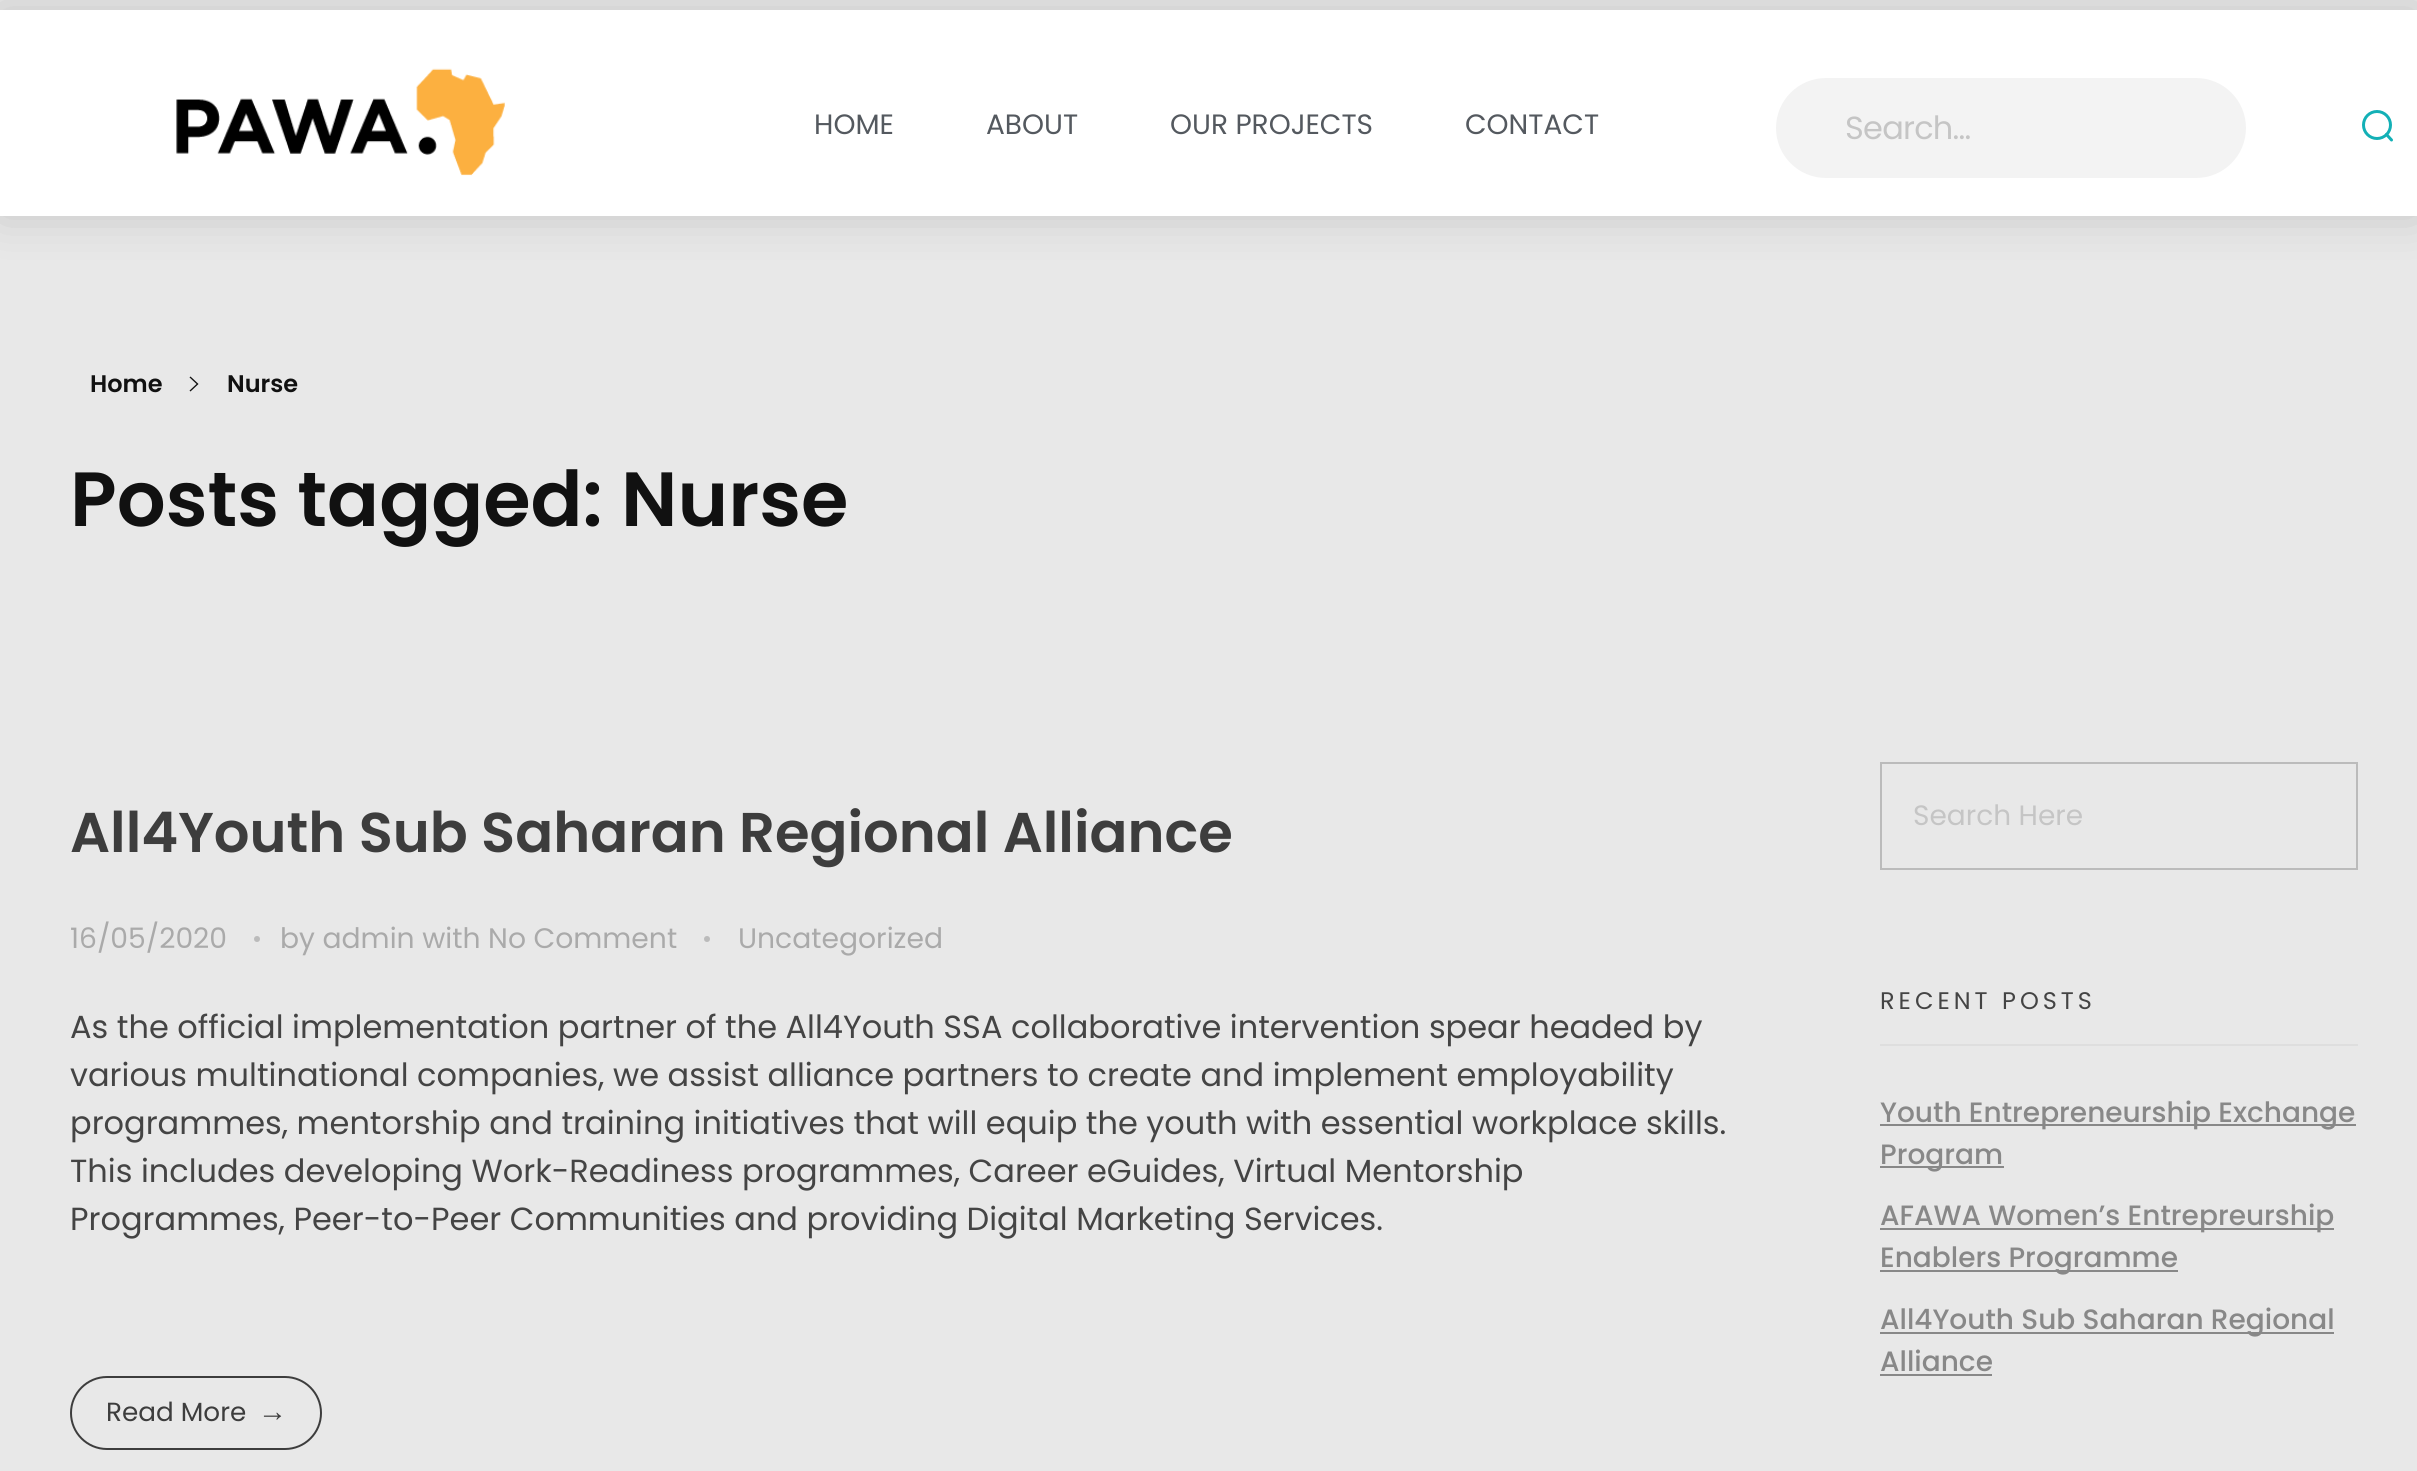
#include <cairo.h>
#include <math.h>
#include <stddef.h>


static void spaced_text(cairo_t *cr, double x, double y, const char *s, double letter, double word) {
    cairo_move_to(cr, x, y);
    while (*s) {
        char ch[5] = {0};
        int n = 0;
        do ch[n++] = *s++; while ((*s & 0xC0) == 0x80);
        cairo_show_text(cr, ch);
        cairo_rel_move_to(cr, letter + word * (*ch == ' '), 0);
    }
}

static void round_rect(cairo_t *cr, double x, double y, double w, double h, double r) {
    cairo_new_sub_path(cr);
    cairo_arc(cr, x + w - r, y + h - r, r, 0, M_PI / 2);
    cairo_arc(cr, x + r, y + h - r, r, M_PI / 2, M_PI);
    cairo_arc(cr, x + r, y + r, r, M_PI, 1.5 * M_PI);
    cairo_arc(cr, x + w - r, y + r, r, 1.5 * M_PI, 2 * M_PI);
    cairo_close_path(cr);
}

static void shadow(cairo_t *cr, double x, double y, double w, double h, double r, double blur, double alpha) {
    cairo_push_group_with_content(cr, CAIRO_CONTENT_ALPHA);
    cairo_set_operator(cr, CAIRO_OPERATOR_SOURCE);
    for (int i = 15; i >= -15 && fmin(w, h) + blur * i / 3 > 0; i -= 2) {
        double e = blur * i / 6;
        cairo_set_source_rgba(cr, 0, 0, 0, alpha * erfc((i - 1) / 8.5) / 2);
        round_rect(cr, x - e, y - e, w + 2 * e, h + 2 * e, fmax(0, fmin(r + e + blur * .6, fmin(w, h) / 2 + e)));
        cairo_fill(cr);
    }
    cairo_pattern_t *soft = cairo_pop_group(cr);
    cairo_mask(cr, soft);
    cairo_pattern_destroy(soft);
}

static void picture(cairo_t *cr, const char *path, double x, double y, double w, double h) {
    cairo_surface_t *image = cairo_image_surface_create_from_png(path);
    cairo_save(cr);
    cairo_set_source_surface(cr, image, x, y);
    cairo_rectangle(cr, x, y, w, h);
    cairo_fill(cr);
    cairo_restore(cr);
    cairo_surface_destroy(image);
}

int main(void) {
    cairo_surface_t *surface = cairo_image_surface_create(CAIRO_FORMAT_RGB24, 2417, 1471);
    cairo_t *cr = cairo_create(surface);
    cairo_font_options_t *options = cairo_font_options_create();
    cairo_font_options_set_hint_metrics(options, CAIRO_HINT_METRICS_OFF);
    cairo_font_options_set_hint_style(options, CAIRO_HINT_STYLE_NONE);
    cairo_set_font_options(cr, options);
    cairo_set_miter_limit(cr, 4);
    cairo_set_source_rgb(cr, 0.91, 0.91, 0.91);
    cairo_paint(cr);
    cairo_set_source_rgb(cr, 0, 0, 0);
    shadow(cr, 0, 10, 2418, 206, 0, 24, 0.15);
    cairo_set_source_rgb(cr, 1, 1, 1);
    cairo_rectangle(cr, 0, 10, 2417, 206);
    cairo_fill(cr);
    picture(cr, "img1.png", 176, 68, 329, 108);
    cairo_select_font_face(cr, "Poppins", CAIRO_FONT_SLANT_NORMAL, CAIRO_FONT_WEIGHT_NORMAL);
    cairo_set_font_size(cr, 28);
    cairo_set_source_rgb(cr, 0.329, 0.349, 0.373);
    cairo_move_to(cr, 814, 134);
    cairo_show_text(cr, "HOME");
    cairo_move_to(cr, 986, 134);
    cairo_show_text(cr, "ABOUT");
    cairo_move_to(cr, 1170, 134);
    cairo_show_text(cr, "OUR PROJECTS");
    cairo_move_to(cr, 1465, 134);
    cairo_show_text(cr, "CONTACT");
    cairo_set_source_rgb(cr, 0.953, 0.953, 0.953);
    round_rect(cr, 1776, 78, 470, 100, 50);
    cairo_fill(cr);
    cairo_set_font_size(cr, 32);
    cairo_set_source_rgb(cr, 0.773, 0.773, 0.773);
    spaced_text(cr, 1845, 139, "Search...", -0.75, 0);
    cairo_new_path(cr);
    cairo_arc(cr, 2377, 125, 13.5, 0, 2 * M_PI);
    cairo_set_source_rgb(cr, 0.078, 0.69, 0.714);
    cairo_set_line_width(cr, 3);
    cairo_stroke(cr);
    cairo_new_path(cr);
    cairo_move_to(cr, 2386.5, 134.5);
    cairo_line_to(cr, 2391.5, 140);
    cairo_set_line_cap(cr, CAIRO_LINE_CAP_ROUND);
    cairo_set_line_join(cr, CAIRO_LINE_JOIN_ROUND);
    cairo_stroke(cr);
    cairo_select_font_face(cr, "Poppins SemiBold", CAIRO_FONT_SLANT_NORMAL, CAIRO_FONT_WEIGHT_NORMAL);
    cairo_set_font_size(cr, 24);
    cairo_set_source_rgb(cr, 0.067, 0.067, 0.067);
    cairo_move_to(cr, 90, 392);
    cairo_show_text(cr, "Home");
    picture(cr, "img2.png", 189, 376, 10, 16);
    cairo_move_to(cr, 227, 392);
    cairo_show_text(cr, "Nurse");
    cairo_set_font_size(cr, 76.75);
    cairo_move_to(cr, 70, 526);
    cairo_show_text(cr, "Posts tagged: Nurse");
    cairo_set_font_size(cr, 56);
    cairo_set_source_rgb(cr, 0.239, 0.239, 0.239);
    cairo_move_to(cr, 70, 852);
    cairo_show_text(cr, "All4Youth Sub Saharan Regional Alliance");
    cairo_select_font_face(cr, "Poppins", CAIRO_FONT_SLANT_NORMAL, CAIRO_FONT_WEIGHT_NORMAL);
    cairo_set_font_size(cr, 28.2);
    cairo_set_source_rgb(cr, 0.667, 0.667, 0.667);
    cairo_move_to(cr, 70, 948);
    cairo_show_text(cr, "16/05/2020");
    cairo_set_source_rgb(cr, 0.733, 0.733, 0.733);
    cairo_new_path(cr);
    cairo_arc(cr, 257, 939, 3, 0, 2 * M_PI);
    cairo_fill(cr);
    cairo_set_source_rgb(cr, 0.667, 0.667, 0.667);
    cairo_move_to(cr, 280, 948);
    cairo_show_text(cr, "by admin with No Comment");
    cairo_set_source_rgb(cr, 0.733, 0.733, 0.733);
    cairo_new_path(cr);
    cairo_arc(cr, 707, 939, 3, 0, 2 * M_PI);
    cairo_fill(cr);
    cairo_set_source_rgb(cr, 0.667, 0.667, 0.667);
    cairo_move_to(cr, 738, 948);
    cairo_show_text(cr, "Uncategorized");
    cairo_set_font_size(cr, 32);
    cairo_set_source_rgb(cr, 0.267, 0.267, 0.267);
    cairo_move_to(cr, 70, 1038);
    cairo_show_text(cr, "As the official implementation partner of the All4Youth SSA collaborative intervention spear headed by");
    cairo_move_to(cr, 70, 1086);
    cairo_show_text(cr, "various multinational companies, we assist alliance partners to create and implement employability");
    cairo_move_to(cr, 70, 1134);
    cairo_show_text(cr, "programmes, mentorship and training initiatives that will equip the youth with essential workplace skills.");
    cairo_move_to(cr, 70, 1182);
    cairo_show_text(cr, "This includes developing Work-Readiness programmes, Career eGuides, Virtual Mentorship");
    cairo_move_to(cr, 70, 1230);
    cairo_show_text(cr, "Programmes, Peer-to-Peer Communities and providing Digital Marketing Services.");
    round_rect(cr, 71, 1377, 250, 72, 36);
    cairo_set_source_rgb(cr, 0.239, 0.239, 0.239);
    cairo_set_line_width(cr, 2);
    cairo_set_line_cap(cr, CAIRO_LINE_CAP_BUTT);
    cairo_set_line_join(cr, CAIRO_LINE_JOIN_MITER);
    cairo_stroke(cr);
    cairo_set_font_size(cr, 26.25);
    cairo_move_to(cr, 106, 1421);
    cairo_show_text(cr, "Read More");
    cairo_select_font_face(cr, "Liberation Sans", CAIRO_FONT_SLANT_NORMAL, CAIRO_FONT_WEIGHT_NORMAL);
    cairo_set_font_size(cr, 29);
    cairo_move_to(cr, 258, 1421);
    cairo_show_text(cr, "→");
    cairo_rectangle(cr, 1881, 763, 476, 106);
    cairo_set_source_rgb(cr, 0.733, 0.733, 0.733);
    cairo_stroke(cr);
    cairo_select_font_face(cr, "Poppins", CAIRO_FONT_SLANT_NORMAL, CAIRO_FONT_WEIGHT_NORMAL);
    cairo_set_font_size(cr, 28);
    cairo_set_source_rgb(cr, 0.773, 0.773, 0.773);
    cairo_move_to(cr, 1913, 825);
    cairo_show_text(cr, "Search Here");
    cairo_set_source_rgb(cr, 0.871, 0.871, 0.871);
    cairo_rectangle(cr, 1880, 1044, 478, 2);
    cairo_fill(cr);
    cairo_set_font_size(cr, 24);
    cairo_set_source_rgb(cr, 0.267, 0.267, 0.267);
    spaced_text(cr, 1880, 1009, "RECENT POSTS", 4, 0);
    cairo_set_source_rgb(cr, 0.533, 0.533, 0.533);
    cairo_rectangle(cr, 1880, 1124, 476, 2);
    cairo_fill(cr);
    cairo_select_font_face(cr, "Poppins Medium", CAIRO_FONT_SLANT_NORMAL, CAIRO_FONT_WEIGHT_NORMAL);
    cairo_set_font_size(cr, 28);
    cairo_move_to(cr, 1880, 1122);
    cairo_show_text(cr, "Youth Entrepreneurship Exchange");
    cairo_rectangle(cr, 1880, 1166, 124, 2);
    cairo_fill(cr);
    cairo_move_to(cr, 1880, 1164);
    cairo_show_text(cr, "Program");
    cairo_rectangle(cr, 1880, 1228, 454, 2);
    cairo_fill(cr);
    cairo_move_to(cr, 1880, 1225);
    cairo_show_text(cr, "AFAWA Women’s Entrepreurship");
    cairo_rectangle(cr, 1880, 1270, 298, 2);
    cairo_fill(cr);
    cairo_move_to(cr, 1880, 1267);
    cairo_show_text(cr, "Enablers Programme");
    cairo_rectangle(cr, 1880, 1332, 454, 2);
    cairo_fill(cr);
    cairo_move_to(cr, 1880, 1329);
    cairo_show_text(cr, "All4Youth Sub Saharan Regional");
    cairo_move_to(cr, 1880, 1371);
    cairo_show_text(cr, "Alliance");
    cairo_rectangle(cr, 1880, 1374, 112, 2);
    cairo_fill(cr);
    cairo_surface_write_to_png(surface, "page.png");
    cairo_font_options_destroy(options);
    cairo_destroy(cr);
    cairo_surface_destroy(surface);
    return 0;
}
